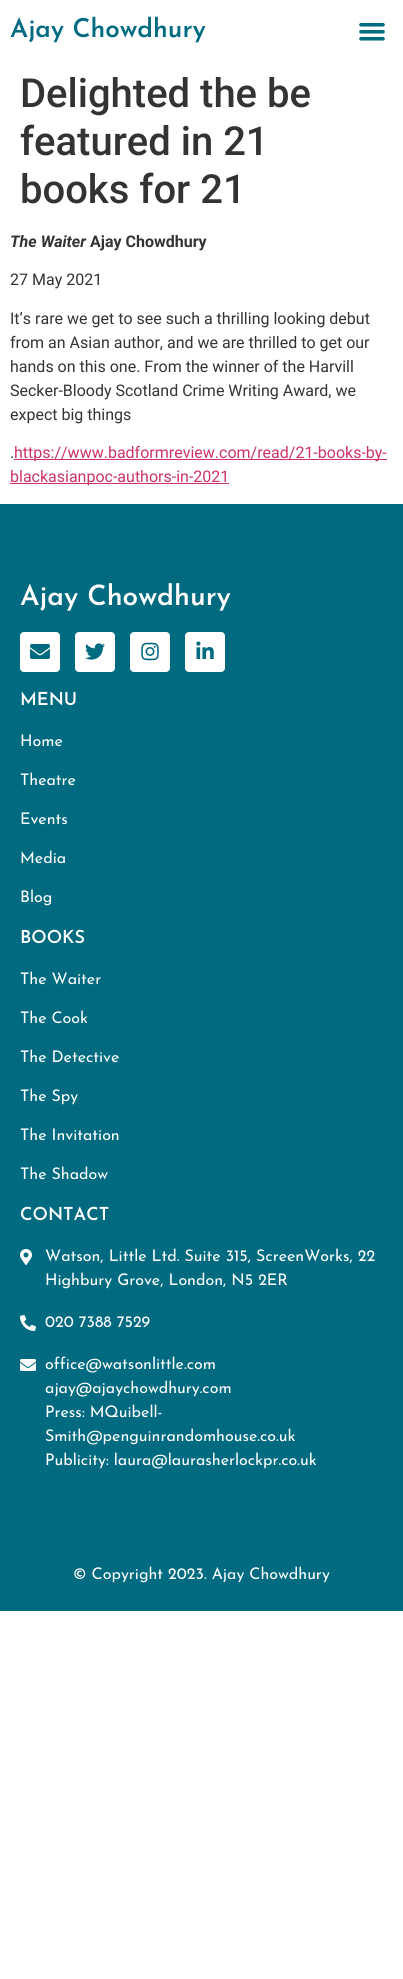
#include <cairo.h>
#include <math.h>
#include <stddef.h>


static void round_rect(cairo_t *cr, double x, double y, double w, double h, double r) {
    cairo_new_sub_path(cr);
    cairo_arc(cr, x + w - r, y + h - r, r, 0, M_PI / 2);
    cairo_arc(cr, x + r, y + h - r, r, M_PI / 2, M_PI);
    cairo_arc(cr, x + r, y + r, r, M_PI, 1.5 * M_PI);
    cairo_arc(cr, x + w - r, y + r, r, 1.5 * M_PI, 2 * M_PI);
    cairo_close_path(cr);
}

static void picture(cairo_t *cr, const char *path, double x, double y, double w, double h) {
    cairo_surface_t *image = cairo_image_surface_create_from_png(path);
    cairo_save(cr);
    cairo_set_source_surface(cr, image, x, y);
    cairo_rectangle(cr, x, y, w, h);
    cairo_fill(cr);
    cairo_restore(cr);
    cairo_surface_destroy(image);
}

int main(void) {
    cairo_surface_t *surface = cairo_image_surface_create(CAIRO_FORMAT_RGB24, 403, 1979);
    cairo_t *cr = cairo_create(surface);
    cairo_font_options_t *options = cairo_font_options_create();
    cairo_font_options_set_hint_metrics(options, CAIRO_HINT_METRICS_OFF);
    cairo_font_options_set_hint_style(options, CAIRO_HINT_STYLE_NONE);
    cairo_set_font_options(cr, options);
    cairo_set_miter_limit(cr, 4);
    cairo_set_source_rgb(cr, 1, 1, 1);
    cairo_paint(cr);
    cairo_select_font_face(cr, "Josefin Sans SemiBold", CAIRO_FONT_SLANT_NORMAL, CAIRO_FONT_WEIGHT_NORMAL);
    cairo_set_font_size(cr, 26);
    cairo_set_source_rgb(cr, 0, 0.416, 0.502);
    cairo_move_to(cr, 10, 37);
    cairo_show_text(cr, "Ajay Chowdhury");
    picture(cr, "img1.png", 359, 23, 26, 18);
    cairo_select_font_face(cr, "Roboto Medium", CAIRO_FONT_SLANT_NORMAL, CAIRO_FONT_WEIGHT_NORMAL);
    cairo_set_font_size(cr, 40);
    cairo_set_source_rgb(cr, 0.2, 0.2, 0.2);
    cairo_move_to(cr, 20, 107);
    cairo_show_text(cr, "Delighted the be");
    cairo_move_to(cr, 20, 155);
    cairo_show_text(cr, "featured in 21");
    cairo_move_to(cr, 20, 203);
    cairo_show_text(cr, "books for 21");
    cairo_select_font_face(cr, "Roboto", CAIRO_FONT_SLANT_ITALIC, CAIRO_FONT_WEIGHT_BOLD);
    cairo_set_font_size(cr, 16);
    cairo_move_to(cr, 10, 247);
    cairo_show_text(cr, "The Waiter");
    cairo_select_font_face(cr, "Roboto", CAIRO_FONT_SLANT_NORMAL, CAIRO_FONT_WEIGHT_BOLD);
    cairo_move_to(cr, 90, 247);
    cairo_show_text(cr, "Ajay Chowdhury");
    cairo_select_font_face(cr, "Roboto", CAIRO_FONT_SLANT_NORMAL, CAIRO_FONT_WEIGHT_NORMAL);
    cairo_move_to(cr, 10, 285);
    cairo_show_text(cr, "27 May 2021");
    cairo_move_to(cr, 10, 324);
    cairo_show_text(cr, "It’s rare we get to see such a thrilling looking debut");
    cairo_move_to(cr, 10, 348);
    cairo_show_text(cr, "from an Asian author, and we are thrilled to get our");
    cairo_move_to(cr, 10, 372);
    cairo_show_text(cr, "hands on this one. From the winner of the Harvill");
    cairo_move_to(cr, 10, 396);
    cairo_show_text(cr, "Secker-Bloody Scotland Crime Writing Award, we");
    cairo_move_to(cr, 10, 420);
    cairo_show_text(cr, "expect big things");
    cairo_move_to(cr, 10, 458);
    cairo_show_text(cr, ".");
    cairo_set_source_rgb(cr, 0.8, 0.2, 0.4);
    cairo_rectangle(cr, 14, 459, 373, 1);
    cairo_fill(cr);
    cairo_move_to(cr, 14, 458);
    cairo_show_text(cr, "https://www.badformreview.com/read/21-books-by-");
    cairo_rectangle(cr, 10, 483, 219, 1);
    cairo_fill(cr);
    cairo_move_to(cr, 10, 482);
    cairo_show_text(cr, "blackasianpoc-authors-in-2021");
    cairo_set_source_rgb(cr, 0, 0.416, 0.502);
    cairo_rectangle(cr, 0, 504, 403, 1107);
    cairo_fill(cr);
    cairo_select_font_face(cr, "Josefin Sans SemiBold", CAIRO_FONT_SLANT_NORMAL, CAIRO_FONT_WEIGHT_NORMAL);
    cairo_set_font_size(cr, 28);
    cairo_set_source_rgb(cr, 1, 1, 1);
    cairo_move_to(cr, 20, 605);
    cairo_show_text(cr, "Ajay Chowdhury");
    round_rect(cr, 20, 632, 40, 40, 4);
    cairo_fill(cr);
    picture(cr, "img2.png", 30, 644, 20, 15);
    round_rect(cr, 75, 632, 40, 40, 4);
    cairo_fill(cr);
    picture(cr, "img3.png", 85, 643, 20, 17);
    round_rect(cr, 130, 632, 40, 40, 4);
    cairo_fill(cr);
    picture(cr, "img4.png", 141, 642, 18, 19);
    round_rect(cr, 185, 632, 40, 40, 4);
    cairo_fill(cr);
    picture(cr, "img5.png", 196, 641, 18, 18);
    cairo_set_font_size(cr, 18);
    cairo_move_to(cr, 20, 705);
    cairo_show_text(cr, "MENU");
    cairo_select_font_face(cr, "Josefin Sans", CAIRO_FONT_SLANT_NORMAL, CAIRO_FONT_WEIGHT_NORMAL);
    cairo_set_font_size(cr, 16);
    cairo_move_to(cr, 20, 746);
    cairo_show_text(cr, "Home");
    cairo_move_to(cr, 20, 785);
    cairo_show_text(cr, "Theatre");
    cairo_move_to(cr, 20, 824);
    cairo_show_text(cr, "Events");
    cairo_move_to(cr, 20, 863);
    cairo_show_text(cr, "Media");
    cairo_move_to(cr, 20, 902);
    cairo_show_text(cr, "Blog");
    cairo_select_font_face(cr, "Josefin Sans SemiBold", CAIRO_FONT_SLANT_NORMAL, CAIRO_FONT_WEIGHT_NORMAL);
    cairo_set_font_size(cr, 18);
    cairo_move_to(cr, 20, 943);
    cairo_show_text(cr, "BOOKS");
    cairo_select_font_face(cr, "Josefin Sans", CAIRO_FONT_SLANT_NORMAL, CAIRO_FONT_WEIGHT_NORMAL);
    cairo_set_font_size(cr, 16);
    cairo_move_to(cr, 20, 984);
    cairo_show_text(cr, "The Waiter");
    cairo_move_to(cr, 20, 1023);
    cairo_show_text(cr, "The Cook");
    cairo_move_to(cr, 20, 1062);
    cairo_show_text(cr, "The Detective");
    cairo_move_to(cr, 20, 1101);
    cairo_show_text(cr, "The Spy");
    cairo_move_to(cr, 20, 1140);
    cairo_show_text(cr, "The Invitation");
    cairo_move_to(cr, 20, 1179);
    cairo_show_text(cr, "The Shadow");
    cairo_select_font_face(cr, "Josefin Sans SemiBold", CAIRO_FONT_SLANT_NORMAL, CAIRO_FONT_WEIGHT_NORMAL);
    cairo_set_font_size(cr, 18);
    cairo_move_to(cr, 20, 1220);
    cairo_show_text(cr, "CONTACT");
    picture(cr, "img6.png", 20, 1249, 12, 16);
    cairo_select_font_face(cr, "Josefin Sans", CAIRO_FONT_SLANT_NORMAL, CAIRO_FONT_WEIGHT_NORMAL);
    cairo_set_font_size(cr, 16);
    cairo_move_to(cr, 45, 1261);
    cairo_show_text(cr, "Watson, Little Ltd. Suite 315, ScreenWorks, 22");
    cairo_move_to(cr, 45, 1285);
    cairo_show_text(cr, "Highbury Grove, London, N5 2ER");
    picture(cr, "img7.png", 20, 1315, 16, 16);
    cairo_move_to(cr, 45, 1327);
    cairo_show_text(cr, "020 7388 7529");
    picture(cr, "img8.png", 20, 1359, 16, 12);
    cairo_move_to(cr, 45, 1369);
    cairo_show_text(cr, "office@watsonlittle.com");
    cairo_move_to(cr, 45, 1393);
    cairo_show_text(cr, "ajay@ajaychowdhury.com");
    cairo_move_to(cr, 45, 1417);
    cairo_show_text(cr, "Press: MQuibell-");
    cairo_move_to(cr, 45, 1441);
    cairo_show_text(cr, "Smith@penguinrandomhouse.co.uk");
    cairo_move_to(cr, 45, 1465);
    cairo_show_text(cr, "Publicity: laura@laurasherlockpr.co.uk");
    cairo_move_to(cr, 73, 1579);
    cairo_show_text(cr, "© Copyright 2023. Ajay Chowdhury");
    cairo_surface_write_to_png(surface, "page.png");
    cairo_font_options_destroy(options);
    cairo_destroy(cr);
    cairo_surface_destroy(surface);
    return 0;
}
